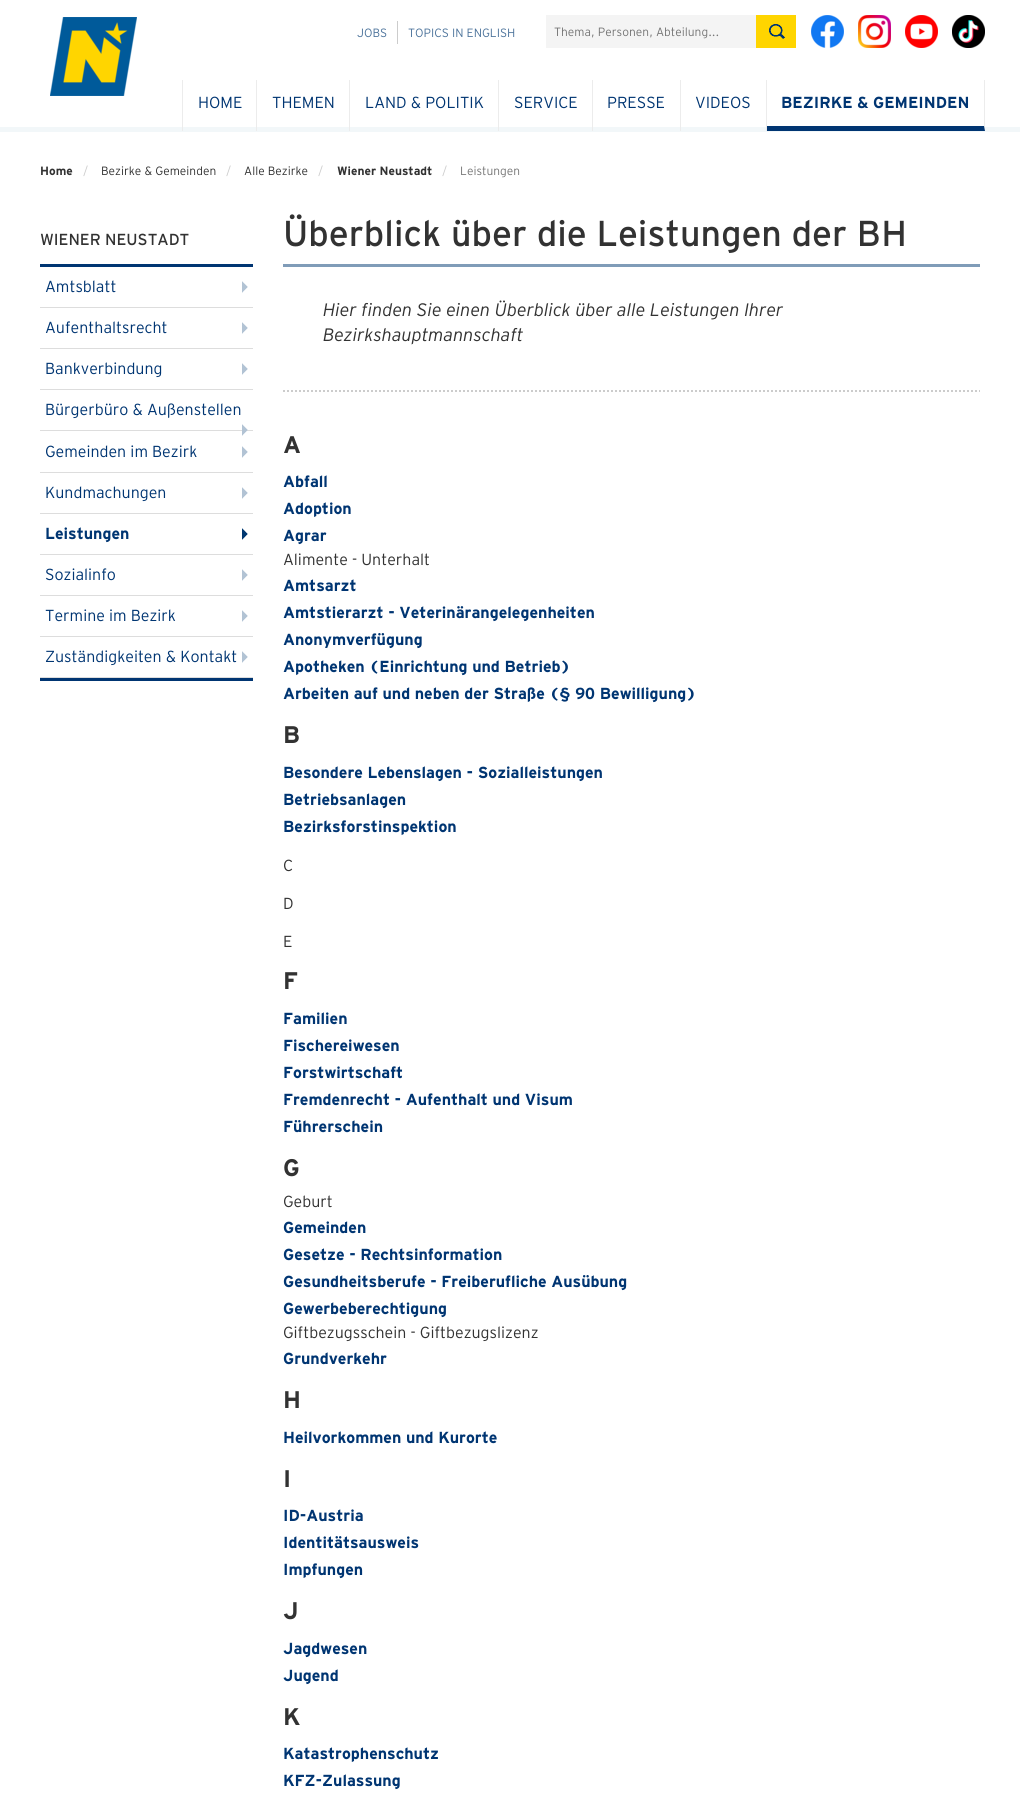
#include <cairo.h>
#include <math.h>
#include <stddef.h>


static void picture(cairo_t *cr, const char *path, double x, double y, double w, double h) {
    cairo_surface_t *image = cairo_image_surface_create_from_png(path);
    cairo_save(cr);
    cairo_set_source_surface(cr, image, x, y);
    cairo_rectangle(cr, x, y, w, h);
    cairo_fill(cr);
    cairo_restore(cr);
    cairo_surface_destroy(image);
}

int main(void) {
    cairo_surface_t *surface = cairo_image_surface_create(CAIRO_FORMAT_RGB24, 1020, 1794);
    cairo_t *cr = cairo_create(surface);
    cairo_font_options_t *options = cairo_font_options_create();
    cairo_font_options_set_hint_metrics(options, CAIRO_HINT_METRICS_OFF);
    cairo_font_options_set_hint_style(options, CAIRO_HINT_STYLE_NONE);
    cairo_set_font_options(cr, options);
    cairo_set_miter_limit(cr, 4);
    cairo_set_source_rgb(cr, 1, 1, 1);
    cairo_paint(cr);
    cairo_set_source_rgb(cr, 0.949, 0.965, 0.976);
    cairo_rectangle(cr, 0, 127, 1020, 5);
    cairo_fill(cr);
    picture(cr, "img1.png", 50, 17, 87, 79);
    cairo_select_font_face(cr, "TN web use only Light", CAIRO_FONT_SLANT_NORMAL, CAIRO_FONT_WEIGHT_NORMAL);
    cairo_set_font_size(cr, 12);
    cairo_set_source_rgb(cr, 0.298, 0.451, 0.608);
    cairo_move_to(cr, 357, 37);
    cairo_show_text(cr, "JOBS");
    cairo_set_source_rgb(cr, 0.8, 0.8, 0.8);
    cairo_rectangle(cr, 397, 21, 1, 23);
    cairo_fill(cr);
    cairo_set_source_rgb(cr, 0.298, 0.451, 0.608);
    cairo_move_to(cr, 408, 37);
    cairo_show_text(cr, "TOPICS IN ENGLISH");
    cairo_set_source_rgb(cr, 0.957, 0.957, 0.957);
    cairo_rectangle(cr, 546, 15, 210, 33);
    cairo_fill(cr);
    cairo_set_source_rgb(cr, 0.459, 0.459, 0.459);
    cairo_move_to(cr, 554, 36);
    cairo_show_text(cr, "Thema, Personen, Abteilung...");
    cairo_set_source_rgb(cr, 1, 0.835, 0);
    cairo_rectangle(cr, 756, 15, 40, 33);
    cairo_fill(cr);
    picture(cr, "img2.png", 769, 24, 16, 15);
    picture(cr, "img3.png", 811, 15, 33, 33);
    picture(cr, "img4.png", 858, 15, 33, 33);
    picture(cr, "img5.png", 905, 15, 33, 33);
    picture(cr, "img6.png", 952, 15, 33, 33);
    cairo_set_source_rgb(cr, 0.922, 0.922, 0.922);
    cairo_rectangle(cr, 256, 80, 1, 51);
    cairo_fill(cr);
    cairo_rectangle(cr, 182, 80, 1, 51);
    cairo_fill(cr);
    cairo_set_font_size(cr, 16);
    cairo_set_source_rgb(cr, 0, 0.208, 0.447);
    cairo_move_to(cr, 198, 108);
    cairo_show_text(cr, "HOME");
    cairo_set_source_rgb(cr, 0.922, 0.922, 0.922);
    cairo_rectangle(cr, 349, 80, 1, 51);
    cairo_fill(cr);
    cairo_set_source_rgb(cr, 0, 0.208, 0.447);
    cairo_move_to(cr, 272, 108);
    cairo_show_text(cr, "THEMEN");
    cairo_set_source_rgb(cr, 0.922, 0.922, 0.922);
    cairo_rectangle(cr, 498, 80, 1, 51);
    cairo_fill(cr);
    cairo_set_source_rgb(cr, 0, 0.208, 0.447);
    cairo_move_to(cr, 365, 108);
    cairo_show_text(cr, "LAND & POLITIK");
    cairo_set_source_rgb(cr, 0.922, 0.922, 0.922);
    cairo_rectangle(cr, 592, 80, 1, 51);
    cairo_fill(cr);
    cairo_set_source_rgb(cr, 0, 0.208, 0.447);
    cairo_move_to(cr, 514, 108);
    cairo_show_text(cr, "SERVICE");
    cairo_set_source_rgb(cr, 0.922, 0.922, 0.922);
    cairo_rectangle(cr, 680, 80, 1, 51);
    cairo_fill(cr);
    cairo_set_source_rgb(cr, 0, 0.208, 0.447);
    cairo_move_to(cr, 607, 108);
    cairo_show_text(cr, "PRESSE");
    cairo_set_source_rgb(cr, 0.922, 0.922, 0.922);
    cairo_rectangle(cr, 766, 80, 1, 51);
    cairo_fill(cr);
    cairo_set_source_rgb(cr, 0, 0.208, 0.447);
    cairo_move_to(cr, 695, 108);
    cairo_show_text(cr, "VIDEOS");
    cairo_set_source_rgb(cr, 0.922, 0.922, 0.922);
    cairo_new_path(cr);
    cairo_move_to(cr, 985, 80);
    cairo_line_to(cr, 985, 131);
    cairo_line_to(cr, 984, 126);
    cairo_line_to(cr, 984, 80);
    cairo_close_path(cr);
    cairo_fill(cr);
    cairo_set_source_rgb(cr, 0, 0.208, 0.447);
    cairo_new_path(cr);
    cairo_move_to(cr, 985, 131);
    cairo_line_to(cr, 767, 131);
    cairo_line_to(cr, 767, 126);
    cairo_line_to(cr, 984, 126);
    cairo_close_path(cr);
    cairo_fill(cr);
    cairo_select_font_face(cr, "TN web use only", CAIRO_FONT_SLANT_NORMAL, CAIRO_FONT_WEIGHT_BOLD);
    cairo_move_to(cr, 781, 108);
    cairo_show_text(cr, "BEZIRKE & GEMEINDEN");
    cairo_set_font_size(cr, 12);
    cairo_set_source_rgb(cr, 0.196, 0.196, 0.196);
    cairo_move_to(cr, 40, 175);
    cairo_show_text(cr, "Home");
    cairo_select_font_face(cr, "TN web use only Light", CAIRO_FONT_SLANT_NORMAL, CAIRO_FONT_WEIGHT_NORMAL);
    cairo_set_source_rgb(cr, 0.8, 0.8, 0.8);
    cairo_move_to(cr, 83, 175);
    cairo_show_text(cr, "/");
    cairo_set_source_rgb(cr, 0.196, 0.196, 0.196);
    cairo_move_to(cr, 101, 175);
    cairo_show_text(cr, "Bezirke & Gemeinden");
    cairo_set_source_rgb(cr, 0.8, 0.8, 0.8);
    cairo_move_to(cr, 226, 175);
    cairo_show_text(cr, "/");
    cairo_set_source_rgb(cr, 0.196, 0.196, 0.196);
    cairo_move_to(cr, 244, 175);
    cairo_show_text(cr, "Alle Bezirke");
    cairo_set_source_rgb(cr, 0.8, 0.8, 0.8);
    cairo_move_to(cr, 318, 175);
    cairo_show_text(cr, "/");
    cairo_select_font_face(cr, "TN web use only", CAIRO_FONT_SLANT_NORMAL, CAIRO_FONT_WEIGHT_BOLD);
    cairo_set_source_rgb(cr, 0.196, 0.196, 0.196);
    cairo_move_to(cr, 337, 175);
    cairo_show_text(cr, "Wiener Neustadt");
    cairo_select_font_face(cr, "TN web use only Light", CAIRO_FONT_SLANT_NORMAL, CAIRO_FONT_WEIGHT_NORMAL);
    cairo_set_source_rgb(cr, 0.8, 0.8, 0.8);
    cairo_move_to(cr, 442, 175);
    cairo_show_text(cr, "/");
    cairo_set_source_rgb(cr, 0.459, 0.459, 0.459);
    cairo_move_to(cr, 460, 175);
    cairo_show_text(cr, "Leistungen");
    cairo_select_font_face(cr, "TN web use only", CAIRO_FONT_SLANT_NORMAL, CAIRO_FONT_WEIGHT_NORMAL);
    cairo_set_font_size(cr, 16);
    cairo_set_source_rgb(cr, 0.196, 0.196, 0.196);
    cairo_move_to(cr, 40, 245);
    cairo_show_text(cr, "WIENER NEUSTADT");
    cairo_set_source_rgb(cr, 0, 0.208, 0.447);
    cairo_rectangle(cr, 40, 264, 213, 3);
    cairo_fill(cr);
    cairo_rectangle(cr, 40, 678, 213, 3);
    cairo_fill(cr);
    cairo_set_source_rgb(cr, 0.867, 0.867, 0.867);
    cairo_rectangle(cr, 40, 307, 213, 1);
    cairo_fill(cr);
    cairo_select_font_face(cr, "TN web use only Light", CAIRO_FONT_SLANT_NORMAL, CAIRO_FONT_WEIGHT_NORMAL);
    cairo_set_source_rgb(cr, 0, 0.208, 0.447);
    cairo_move_to(cr, 45, 292);
    cairo_show_text(cr, "Amtsblatt");
    picture(cr, "img7.png", 242, 281, 6, 12);
    cairo_set_source_rgb(cr, 0.867, 0.867, 0.867);
    cairo_rectangle(cr, 40, 348, 213, 1);
    cairo_fill(cr);
    cairo_set_source_rgb(cr, 0, 0.208, 0.447);
    cairo_move_to(cr, 45, 333);
    cairo_show_text(cr, "Aufenthaltsrecht");
    picture(cr, "img7.png", 242, 322, 6, 12);
    cairo_set_source_rgb(cr, 0.867, 0.867, 0.867);
    cairo_rectangle(cr, 40, 389, 213, 1);
    cairo_fill(cr);
    cairo_set_source_rgb(cr, 0, 0.208, 0.447);
    cairo_move_to(cr, 45, 374);
    cairo_show_text(cr, "Bankverbindung");
    picture(cr, "img7.png", 242, 363, 6, 12);
    cairo_set_source_rgb(cr, 0.867, 0.867, 0.867);
    cairo_rectangle(cr, 40, 430, 213, 1);
    cairo_fill(cr);
    cairo_set_source_rgb(cr, 0, 0.208, 0.447);
    cairo_move_to(cr, 45, 415);
    cairo_show_text(cr, "Bürgerbüro & Außenstellen");
    picture(cr, "img8.png", 242, 424, 6, 12);
    cairo_set_source_rgb(cr, 0.867, 0.867, 0.867);
    cairo_rectangle(cr, 40, 472, 213, 1);
    cairo_fill(cr);
    cairo_set_source_rgb(cr, 0, 0.208, 0.447);
    cairo_move_to(cr, 45, 457);
    cairo_show_text(cr, "Gemeinden im Bezirk");
    picture(cr, "img7.png", 242, 446, 6, 12);
    cairo_set_source_rgb(cr, 0.867, 0.867, 0.867);
    cairo_rectangle(cr, 40, 513, 213, 1);
    cairo_fill(cr);
    cairo_set_source_rgb(cr, 0, 0.208, 0.447);
    cairo_move_to(cr, 45, 498);
    cairo_show_text(cr, "Kundmachungen");
    picture(cr, "img7.png", 242, 487, 6, 12);
    cairo_set_source_rgb(cr, 0.867, 0.867, 0.867);
    cairo_rectangle(cr, 40, 554, 213, 1);
    cairo_fill(cr);
    cairo_select_font_face(cr, "TN web use only", CAIRO_FONT_SLANT_NORMAL, CAIRO_FONT_WEIGHT_BOLD);
    cairo_set_source_rgb(cr, 0, 0.208, 0.447);
    cairo_move_to(cr, 45, 539);
    cairo_show_text(cr, "Leistungen");
    picture(cr, "img9.png", 242, 528, 6, 12);
    cairo_set_source_rgb(cr, 0.867, 0.867, 0.867);
    cairo_rectangle(cr, 40, 595, 213, 1);
    cairo_fill(cr);
    cairo_select_font_face(cr, "TN web use only Light", CAIRO_FONT_SLANT_NORMAL, CAIRO_FONT_WEIGHT_NORMAL);
    cairo_set_source_rgb(cr, 0, 0.208, 0.447);
    cairo_move_to(cr, 45, 580);
    cairo_show_text(cr, "Sozialinfo");
    picture(cr, "img7.png", 242, 569, 6, 12);
    cairo_set_source_rgb(cr, 0.867, 0.867, 0.867);
    cairo_rectangle(cr, 40, 636, 213, 1);
    cairo_fill(cr);
    cairo_set_source_rgb(cr, 0, 0.208, 0.447);
    cairo_move_to(cr, 45, 621);
    cairo_show_text(cr, "Termine im Bezirk");
    picture(cr, "img7.png", 242, 610, 6, 12);
    cairo_set_source_rgb(cr, 0.867, 0.867, 0.867);
    cairo_rectangle(cr, 40, 677, 213, 1);
    cairo_fill(cr);
    cairo_set_source_rgb(cr, 0, 0.208, 0.447);
    cairo_move_to(cr, 45, 662);
    cairo_show_text(cr, "Zuständigkeiten & Kontakt");
    picture(cr, "img7.png", 242, 651, 6, 12);
    cairo_set_source_rgb(cr, 0.502, 0.612, 0.722);
    cairo_rectangle(cr, 283, 264, 697, 3);
    cairo_fill(cr);
    cairo_select_font_face(cr, "TN web use only", CAIRO_FONT_SLANT_NORMAL, CAIRO_FONT_WEIGHT_NORMAL);
    cairo_set_font_size(cr, 36);
    cairo_set_source_rgb(cr, 0.196, 0.196, 0.196);
    cairo_move_to(cr, 283, 246);
    cairo_show_text(cr, "Überblick über die Leistungen der BH");
    cairo_new_path(cr);
    cairo_move_to(cr, 283, 391);
    cairo_line_to(cr, 980, 391);
    cairo_set_source_rgb(cr, 0.8, 0.8, 0.8);
    cairo_set_dash(cr, (double[]){2, 2}, 2, 0);
    cairo_stroke(cr);
    cairo_select_font_face(cr, "TN web use only Light", CAIRO_FONT_SLANT_ITALIC, CAIRO_FONT_WEIGHT_NORMAL);
    cairo_set_font_size(cr, 18);
    cairo_set_source_rgb(cr, 0.196, 0.196, 0.196);
    cairo_move_to(cr, 323, 316);
    cairo_show_text(cr, "Hier finden Sie einen Überblick über alle Leistungen Ihrer");
    cairo_move_to(cr, 323, 341);
    cairo_show_text(cr, "Bezirkshauptmannschaft");
    cairo_select_font_face(cr, "TN web use only", CAIRO_FONT_SLANT_NORMAL, CAIRO_FONT_WEIGHT_BOLD);
    cairo_set_font_size(cr, 24);
    cairo_move_to(cr, 283, 453);
    cairo_show_text(cr, "A");
    cairo_set_font_size(cr, 16);
    cairo_set_source_rgb(cr, 0, 0.208, 0.447);
    cairo_move_to(cr, 283, 487);
    cairo_show_text(cr, "Abfall");
    cairo_move_to(cr, 283, 514);
    cairo_show_text(cr, "Adoption");
    cairo_move_to(cr, 283, 541);
    cairo_show_text(cr, "Agrar");
    cairo_select_font_face(cr, "TN web use only Light", CAIRO_FONT_SLANT_NORMAL, CAIRO_FONT_WEIGHT_NORMAL);
    cairo_set_source_rgb(cr, 0.196, 0.196, 0.196);
    cairo_move_to(cr, 283, 565);
    cairo_show_text(cr, "Alimente - Unterhalt");
    cairo_select_font_face(cr, "TN web use only", CAIRO_FONT_SLANT_NORMAL, CAIRO_FONT_WEIGHT_BOLD);
    cairo_set_source_rgb(cr, 0, 0.208, 0.447);
    cairo_move_to(cr, 283, 591);
    cairo_show_text(cr, "Amtsarzt");
    cairo_move_to(cr, 283, 618);
    cairo_show_text(cr, "Amtstierarzt - Veterinärangelegenheiten");
    cairo_move_to(cr, 283, 645);
    cairo_show_text(cr, "Anonymverfügung");
    cairo_move_to(cr, 283, 672);
    cairo_show_text(cr, "Apotheken (Einrichtung und Betrieb)");
    cairo_move_to(cr, 283, 699);
    cairo_show_text(cr, "Arbeiten auf und neben der Straße (§ 90 Bewilligung)");
    cairo_set_font_size(cr, 24);
    cairo_set_source_rgb(cr, 0.196, 0.196, 0.196);
    cairo_move_to(cr, 283, 743);
    cairo_show_text(cr, "B");
    cairo_set_font_size(cr, 16);
    cairo_set_source_rgb(cr, 0, 0.208, 0.447);
    cairo_move_to(cr, 283, 778);
    cairo_show_text(cr, "Besondere Lebenslagen - Sozialleistungen");
    cairo_move_to(cr, 283, 805);
    cairo_show_text(cr, "Betriebsanlagen");
    cairo_move_to(cr, 283, 832);
    cairo_show_text(cr, "Bezirksforstinspektion");
    cairo_select_font_face(cr, "TN web use only Light", CAIRO_FONT_SLANT_NORMAL, CAIRO_FONT_WEIGHT_NORMAL);
    cairo_set_source_rgb(cr, 0.196, 0.196, 0.196);
    cairo_move_to(cr, 283, 871);
    cairo_show_text(cr, "C");
    cairo_move_to(cr, 283, 909);
    cairo_show_text(cr, "D");
    cairo_move_to(cr, 283, 947);
    cairo_show_text(cr, "E");
    cairo_select_font_face(cr, "TN web use only", CAIRO_FONT_SLANT_NORMAL, CAIRO_FONT_WEIGHT_BOLD);
    cairo_set_font_size(cr, 24);
    cairo_move_to(cr, 283, 989);
    cairo_show_text(cr, "F");
    cairo_set_font_size(cr, 16);
    cairo_set_source_rgb(cr, 0, 0.208, 0.447);
    cairo_move_to(cr, 283, 1024);
    cairo_show_text(cr, "Familien");
    cairo_move_to(cr, 283, 1051);
    cairo_show_text(cr, "Fischereiwesen");
    cairo_move_to(cr, 283, 1078);
    cairo_show_text(cr, "Forstwirtschaft");
    cairo_move_to(cr, 283, 1105);
    cairo_show_text(cr, "Fremdenrecht - Aufenthalt und Visum");
    cairo_move_to(cr, 283, 1132);
    cairo_show_text(cr, "Führerschein");
    cairo_set_font_size(cr, 24);
    cairo_set_source_rgb(cr, 0.196, 0.196, 0.196);
    cairo_move_to(cr, 283, 1176);
    cairo_show_text(cr, "G");
    cairo_select_font_face(cr, "TN web use only Light", CAIRO_FONT_SLANT_NORMAL, CAIRO_FONT_WEIGHT_NORMAL);
    cairo_set_font_size(cr, 16);
    cairo_move_to(cr, 283, 1207);
    cairo_show_text(cr, "Geburt");
    cairo_select_font_face(cr, "TN web use only", CAIRO_FONT_SLANT_NORMAL, CAIRO_FONT_WEIGHT_BOLD);
    cairo_set_source_rgb(cr, 0, 0.208, 0.447);
    cairo_move_to(cr, 283, 1233);
    cairo_show_text(cr, "Gemeinden");
    cairo_move_to(cr, 283, 1260);
    cairo_show_text(cr, "Gesetze - Rechtsinformation");
    cairo_move_to(cr, 283, 1287);
    cairo_show_text(cr, "Gesundheitsberufe - Freiberufliche Ausübung");
    cairo_move_to(cr, 283, 1314);
    cairo_show_text(cr, "Gewerbeberechtigung");
    cairo_select_font_face(cr, "TN web use only Light", CAIRO_FONT_SLANT_NORMAL, CAIRO_FONT_WEIGHT_NORMAL);
    cairo_set_source_rgb(cr, 0.196, 0.196, 0.196);
    cairo_move_to(cr, 283, 1338);
    cairo_show_text(cr, "Giftbezugsschein - Giftbezugslizenz");
    cairo_select_font_face(cr, "TN web use only", CAIRO_FONT_SLANT_NORMAL, CAIRO_FONT_WEIGHT_BOLD);
    cairo_set_source_rgb(cr, 0, 0.208, 0.447);
    cairo_move_to(cr, 283, 1364);
    cairo_show_text(cr, "Grundverkehr");
    cairo_set_font_size(cr, 24);
    cairo_set_source_rgb(cr, 0.196, 0.196, 0.196);
    cairo_move_to(cr, 283, 1408);
    cairo_show_text(cr, "H");
    cairo_set_font_size(cr, 16);
    cairo_set_source_rgb(cr, 0, 0.208, 0.447);
    cairo_move_to(cr, 283, 1443);
    cairo_show_text(cr, "Heilvorkommen und Kurorte");
    cairo_set_font_size(cr, 24);
    cairo_set_source_rgb(cr, 0.196, 0.196, 0.196);
    cairo_move_to(cr, 283, 1487);
    cairo_show_text(cr, "I");
    cairo_set_font_size(cr, 16);
    cairo_set_source_rgb(cr, 0, 0.208, 0.447);
    cairo_move_to(cr, 283, 1521);
    cairo_show_text(cr, "ID-Austria");
    cairo_move_to(cr, 283, 1548);
    cairo_show_text(cr, "Identitätsausweis");
    cairo_move_to(cr, 283, 1575);
    cairo_show_text(cr, "Impfungen");
    cairo_set_font_size(cr, 24);
    cairo_set_source_rgb(cr, 0.196, 0.196, 0.196);
    cairo_move_to(cr, 283, 1619);
    cairo_show_text(cr, "J");
    cairo_set_font_size(cr, 16);
    cairo_set_source_rgb(cr, 0, 0.208, 0.447);
    cairo_move_to(cr, 283, 1654);
    cairo_show_text(cr, "Jagdwesen");
    cairo_move_to(cr, 283, 1681);
    cairo_show_text(cr, "Jugend");
    cairo_set_font_size(cr, 24);
    cairo_set_source_rgb(cr, 0.196, 0.196, 0.196);
    cairo_move_to(cr, 283, 1725);
    cairo_show_text(cr, "K");
    cairo_set_font_size(cr, 16);
    cairo_set_source_rgb(cr, 0, 0.208, 0.447);
    cairo_move_to(cr, 283, 1759);
    cairo_show_text(cr, "Katastrophenschutz");
    cairo_move_to(cr, 283, 1786);
    cairo_show_text(cr, "KFZ-Zulassung");
    cairo_surface_write_to_png(surface, "page.png");
    cairo_font_options_destroy(options);
    cairo_destroy(cr);
    cairo_surface_destroy(surface);
    return 0;
}
